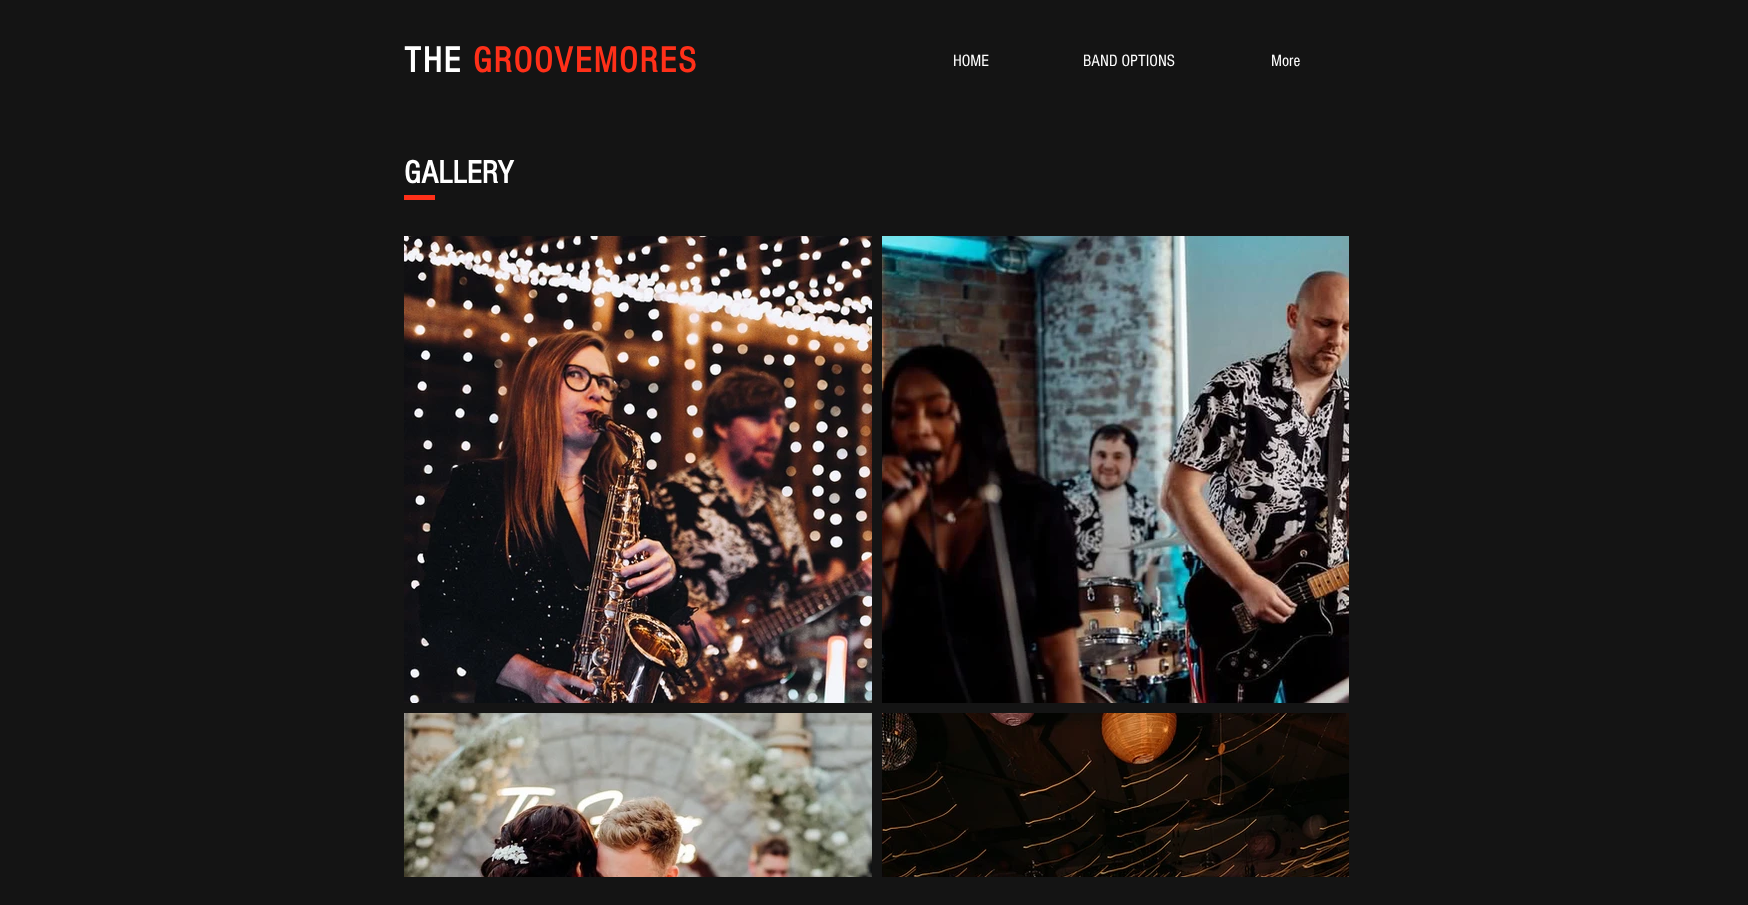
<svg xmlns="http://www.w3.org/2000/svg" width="1748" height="905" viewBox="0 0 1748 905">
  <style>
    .t1 { font: bold 37px 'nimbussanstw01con'; letter-spacing: 1.8px; fill: #fff; }
    .t2 { font: bold 37px 'nimbussanstw01con'; letter-spacing: 1.8px; fill: #ff3019; }
    .t3 { font: 17px 'nimbussanstw01con'; fill: #fff; }
    .t4 { font: bold 33px 'nimbussanstw01con'; fill: #fff; }
  </style>
  <rect width="100%" height="100%" fill="#141414"/>
  <text x="404" y="72" class="t1">THE</text>
  <text x="473" y="72" class="t2">GROOVEMORES</text>
  <text x="953" y="66" class="t3">HOME</text>
  <text x="1083" y="66" class="t3">BAND OPTIONS</text>
  <text x="1271" y="66" class="t3">More</text>
  <text x="404" y="183" class="t4">GALLERY</text>
  <rect x="404" y="195" width="31" height="5" fill="#ff3019"/>
  <image x="404" y="236" width="468" height="467" href="images/1.png"/>
  <image x="882" y="236" width="467" height="467" href="images/2.png"/>
  <image x="404" y="713" width="468" height="164" href="images/3.png"/>
  <image x="882" y="713" width="467" height="164" href="images/4.png"/>
</svg>
